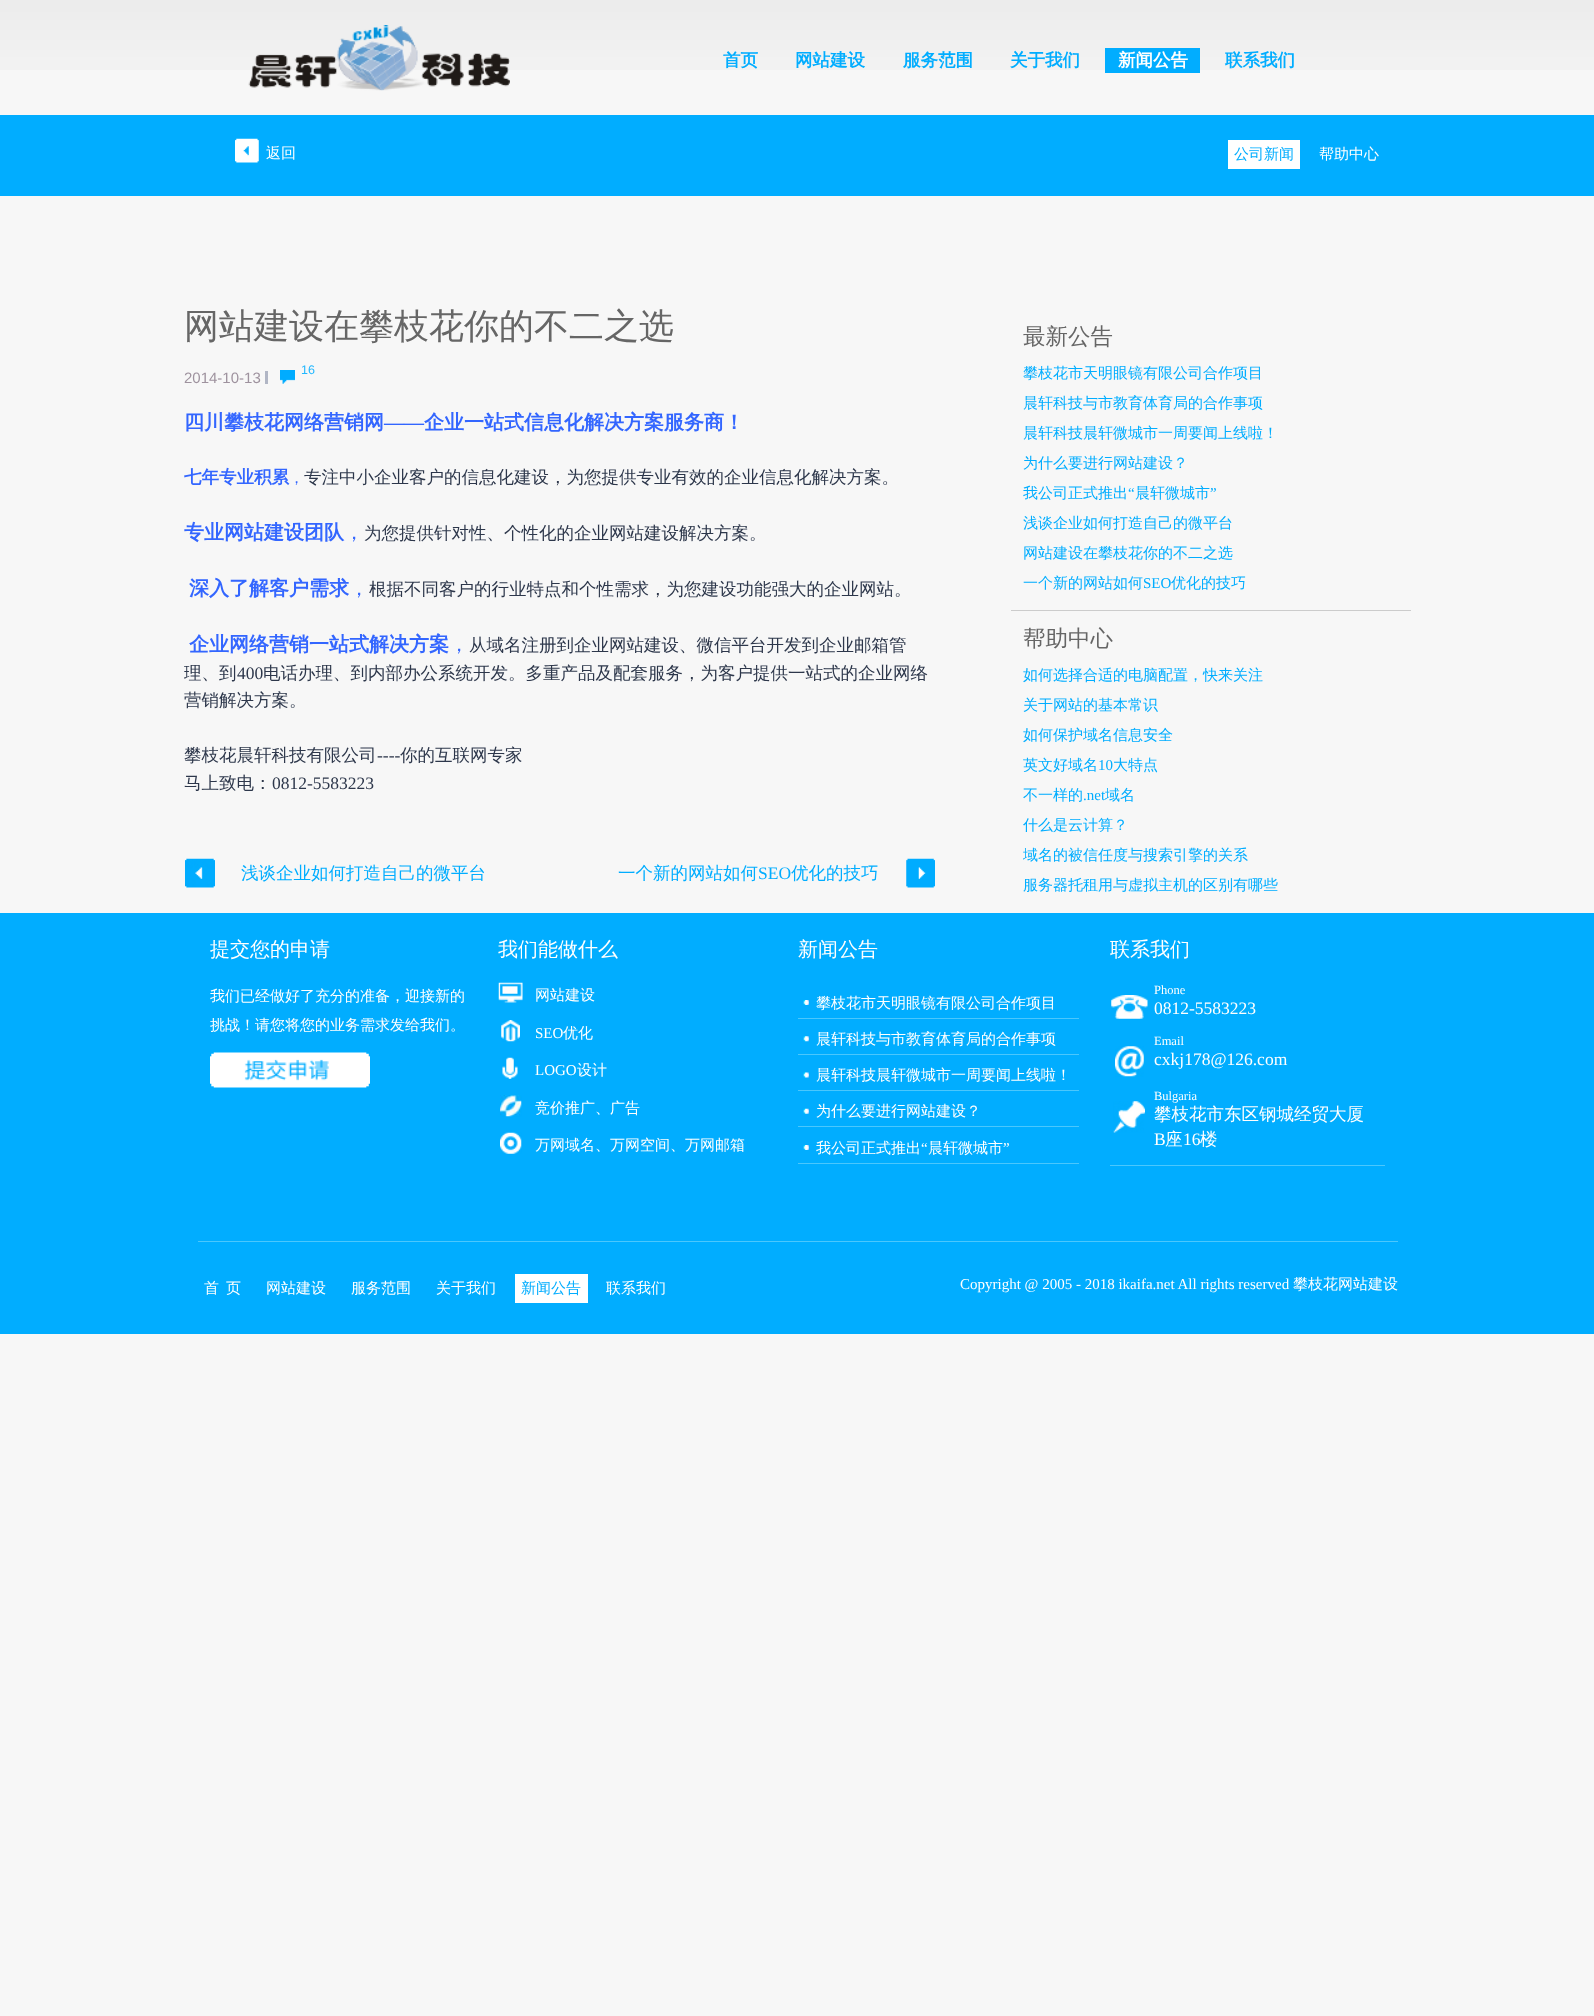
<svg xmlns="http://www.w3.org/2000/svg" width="1594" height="2016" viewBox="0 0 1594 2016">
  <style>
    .t1 { font: bold 17.5px WenQuanYi Zen Hei; fill: #01adff; }
    .t2 { font: bold 17.5px WenQuanYi Zen Hei; fill: #fff; }
    .t3 { font: 500 15px WenQuanYi Zen Hei; fill: #fff; }
    .t4 { font: 500 15px WenQuanYi Zen Hei; fill: #01adff; }
    .t5 { font: 500 35px WenQuanYi Zen Hei; fill: #666; }
    .t6 { font: 12.5px Liberation Sans; fill: #21b7ff; }
    .t7 { font: 15px Liberation Sans; fill: #9e929e; }
    .t8 { font: bold 20px WenQuanYi Zen Hei; fill: #36f; }
    .t9 { font: bold 20px Liberation Serif; fill: #36f; }
    .t10 { font: bold 17.5px WenQuanYi Zen Hei; fill: #36f; }
    .t11 { font: 500 15px WenQuanYi Zen Hei; fill: #36f; }
    .t12 { font: 500 17.5px WenQuanYi Zen Hei; fill: #2d374b; }
    .t13 { font: 500 20px WenQuanYi Zen Hei; fill: #36f; }
    .t14 { font: 17.5px Liberation Serif; fill: #2d374b; }
    .t15 { font: 500 17.5px WenQuanYi Zen Hei; fill: #01adff; }
    .t16 { font: 17.5px Liberation Serif; fill: #01adff; }
    .t17 { font: 500 22.5px WenQuanYi Zen Hei; fill: #666; }
    .t18 { font: 15px Liberation Serif; fill: #01adff; }
    .t19 { font: 500 20px WenQuanYi Zen Hei; fill: #fff; }
    .t20 { font: 15px Liberation Serif; fill: #fff; }
    .t21 { font: 12.5px Liberation Serif; fill: #fff; }
    .t22 { font: 17.5px Liberation Serif; fill: #fff; }
    .t23 { font: 500 17.5px WenQuanYi Zen Hei; fill: #fff; }
  </style>
  <rect width="100%" height="100%" fill="#f7f7f7"/>
  <image x="0" y="0" width="1594" height="70" href="images/1.png"/>
  <image x="248" y="25" width="262" height="66" href="images/2.png"/>
  <text x="723" y="66" class="t1">首页</text>
  <text x="795" y="66" class="t1">网站建设</text>
  <text x="903" y="66" class="t1">服务范围</text>
  <text x="1010" y="66" class="t1">关于我们</text>
  <rect x="1105" y="48" width="95" height="25" fill="#01adff"/>
  <text x="1118" y="66" class="t2">新闻公告</text>
  <text x="1225" y="66" class="t1">联系我们</text>
  <rect x="0" y="115" width="1594" height="81" fill="#01adff"/>
  <image x="235" y="138" width="24" height="25" href="images/3.png"/>
  <text x="266" y="158" class="t3">返回</text>
  <rect x="1228" y="140" width="72" height="29" fill="#fff"/>
  <text x="1234" y="159" class="t4">公司新闻</text>
  <text x="1319" y="159" class="t3">帮助中心</text>
  <text x="184" y="338" class="t5">网站建设在攀枝花你的不二之选</text>
  <image x="280" y="370" width="15" height="14" href="images/4.png"/>
  <text x="301" y="374" class="t6">16</text>
  <rect x="265" y="371" width="3" height="13" fill="#b1b6c5"/>
  <text x="184" y="383" class="t7">2014-10-13</text>
  <text x="184" y="429" class="t8">四川攀枝花网络营销网</text>
  <text x="384" y="429" class="t9">——</text>
  <text x="424" y="429" class="t8">企业一站式信息化解决方案服务商！</text>
  <text x="184" y="483" class="t10">七年专业积累</text>
  <text x="289" y="483" class="t11">，</text>
  <text x="304" y="483" class="t12">专注中小企业客户的信息化建设，为您提供专业有效的企业信息化解决方案。</text>
  <text x="184" y="539" class="t8">专业网站建设团队</text>
  <text x="344" y="539" class="t13">，</text>
  <text x="364" y="539" class="t12">为您提供针对性、个性化的企业网站建设解决方案。</text>
  <text x="189" y="595" class="t8">深入了解客户需求</text>
  <text x="349" y="595" class="t13">，</text>
  <text x="369" y="595" class="t12">根据不同客户的行业特点和个性需求，为您建设功能强大的企业网站。</text>
  <text x="189" y="651" class="t8">企业网络营销一站式解决方案</text>
  <text x="449" y="651" class="t13">，</text>
  <text x="469" y="651" class="t12">从域名注册到企业网站建设、微信平台开发到企业邮箱管</text>
  <text x="184" y="679" class="t12">理、到</text>
  <text x="237" y="679" class="t14">400</text>
  <text x="263" y="679" class="t12">电话办理、到内部办公系统开发。多重产品及配套服务，为客户提供一站式的企业网络</text>
  <text x="184" y="706" class="t12">营销解决方案。</text>
  <text x="184" y="761" class="t12">攀枝花晨轩科技有限公司</text>
  <text x="377" y="761" class="t14">----</text>
  <text x="400" y="761" class="t12">你的互联网专家</text>
  <text x="184" y="789" class="t12">马上致电：</text>
  <text x="272" y="789" class="t14">0812-5583223</text>
  <image x="185" y="858" width="30" height="30" href="images/5.png"/>
  <text x="241" y="879" class="t15">浅谈企业如何打造自己的微平台</text>
  <image x="906" y="858" width="29" height="30" href="images/6.png"/>
  <text x="618" y="879" class="t15">一个新的网站如何</text>
  <text x="758" y="879" class="t16">SEO</text>
  <text x="791" y="879" class="t15">优化的技巧</text>
  <rect x="1011" y="610" width="400" height="1" fill="#ccc"/>
  <text x="1023" y="344" class="t17">最新公告</text>
  <text x="1023" y="378" class="t4">攀枝花市天明眼镜有限公司合作项目</text>
  <text x="1023" y="408" class="t4">晨轩科技与市教育体育局的合作事项</text>
  <text x="1023" y="438" class="t4">晨轩科技晨轩微城市一周要闻上线啦！</text>
  <text x="1023" y="468" class="t4">为什么要进行网站建设？</text>
  <text x="1023" y="498" class="t4">我公司正式推出</text>
  <text x="1128" y="498" class="t18">“</text>
  <text x="1135" y="498" class="t4">晨轩微城市</text>
  <text x="1210" y="498" class="t18">”</text>
  <text x="1023" y="528" class="t4">浅谈企业如何打造自己的微平台</text>
  <text x="1023" y="558" class="t4">网站建设在攀枝花你的不二之选</text>
  <text x="1023" y="588" class="t4">一个新的网站如何</text>
  <text x="1143" y="588" class="t18">SEO</text>
  <text x="1171" y="588" class="t4">优化的技巧</text>
  <text x="1023" y="646" class="t17">帮助中心</text>
  <text x="1023" y="680" class="t4">如何选择合适的电脑配置，快来关注</text>
  <text x="1023" y="710" class="t4">关于网站的基本常识</text>
  <text x="1023" y="740" class="t4">如何保护域名信息安全</text>
  <text x="1023" y="770" class="t4">英文好域名</text>
  <text x="1098" y="770" class="t18">10</text>
  <text x="1113" y="770" class="t4">大特点</text>
  <text x="1023" y="800" class="t4">不一样的</text>
  <text x="1083" y="800" class="t18">.net</text>
  <text x="1105" y="800" class="t4">域名</text>
  <text x="1023" y="830" class="t4">什么是云计算？</text>
  <text x="1023" y="860" class="t4">域名的被信任度与搜索引擎的关系</text>
  <text x="1023" y="890" class="t4">服务器托租用与虚拟主机的区别有哪些</text>
  <rect x="0" y="913" width="1594" height="421" fill="#01adff"/>
  <text x="210" y="956" class="t19">提交您的申请</text>
  <text x="210" y="1001" class="t3">我们已经做好了充分的准备，迎接新的</text>
  <text x="210" y="1030" class="t3">挑战！请您将您的业务需求发给我们。</text>
  <image x="210" y="1052" width="160" height="36" href="images/7.png"/>
  <text x="498" y="956" class="t19">我们能做什么</text>
  <image x="498" y="982" width="25" height="21" href="images/8.png"/>
  <text x="535" y="1000" class="t3">网站建设</text>
  <image x="501" y="1020" width="19" height="22" href="images/9.png"/>
  <text x="535" y="1038" class="t20">SEO</text>
  <text x="563" y="1038" class="t3">优化</text>
  <image x="502" y="1057" width="16" height="22" href="images/10.png"/>
  <text x="535" y="1075" class="t20">LOGO</text>
  <text x="577" y="1075" class="t3">设计</text>
  <image x="500" y="1095" width="22" height="22" href="images/11.png"/>
  <text x="535" y="1113" class="t3">竞价推广、广告</text>
  <image x="500" y="1132" width="22" height="22" href="images/12.png"/>
  <text x="535" y="1150" class="t3">万网域名、万网空间、万网邮箱</text>
  <text x="798" y="956" class="t19">新闻公告</text>
  <image x="803" y="1000" width="6" height="5" href="images/13.png"/>
  <rect x="798" y="1018" width="281" height="1" fill="#4bc7fd"/>
  <text x="816" y="1008" class="t3">攀枝花市天明眼镜有限公司合作项目</text>
  <image x="803" y="1036" width="6" height="6" href="images/14.png"/>
  <rect x="798" y="1054" width="281" height="1" fill="#4bc7fd"/>
  <text x="816" y="1044" class="t3">晨轩科技与市教育体育局的合作事项</text>
  <image x="803" y="1072" width="6" height="6" href="images/15.png"/>
  <rect x="798" y="1090" width="281" height="1" fill="#4bc7fd"/>
  <text x="816" y="1080" class="t3">晨轩科技晨轩微城市一周要闻上线啦！</text>
  <image x="803" y="1108" width="6" height="6" href="images/16.png"/>
  <rect x="798" y="1126" width="281" height="1" fill="#4bc7fd"/>
  <text x="816" y="1116" class="t3">为什么要进行网站建设？</text>
  <image x="803" y="1145" width="6" height="5" href="images/13.png"/>
  <rect x="798" y="1163" width="281" height="1" fill="#4bc7fd"/>
  <text x="816" y="1153" class="t3">我公司正式推出</text>
  <text x="921" y="1153" class="t20">“</text>
  <text x="928" y="1153" class="t3">晨轩微城市</text>
  <text x="1003" y="1153" class="t20">”</text>
  <text x="1110" y="956" class="t19">联系我们</text>
  <image x="1111" y="995" width="37" height="24" href="images/17.png"/>
  <text x="1154" y="994" class="t21">Phone</text>
  <text x="1154" y="1014" class="t22">0812-5583223</text>
  <image x="1115" y="1046" width="29" height="31" href="images/18.png"/>
  <text x="1154" y="1045" class="t21">Email</text>
  <text x="1154" y="1065" class="t22">cxkj178@126.com</text>
  <image x="1113" y="1101" width="32" height="32" href="images/19.png"/>
  <text x="1154" y="1100" class="t21">Bulgaria</text>
  <text x="1154" y="1120" class="t23">攀枝花市东区钢城经贸大厦</text>
  <text x="1154" y="1145" class="t22">B</text>
  <text x="1165" y="1145" class="t23">座</text>
  <text x="1183" y="1145" class="t22">16</text>
  <text x="1200" y="1145" class="t23">楼</text>
  <rect x="1110" y="1165" width="275" height="1" fill="#4bc7fd"/>
  <rect x="198" y="1241" width="1200" height="1" fill="#4bc7fd"/>
  <text x="204" y="1293" class="t3">首</text>
  <text x="226" y="1293" class="t3">页</text>
  <text x="266" y="1293" class="t3">网站建设</text>
  <text x="351" y="1293" class="t3">服务范围</text>
  <text x="436" y="1293" class="t3">关于我们</text>
  <rect x="515" y="1274" width="73" height="29" fill="#fff"/>
  <text x="521" y="1293" class="t4">新闻公告</text>
  <text x="606" y="1293" class="t3">联系我们</text>
  <text x="960" y="1289" class="t20">Copyright @ 2005 - 2018 ikaifa.net All rights reserved</text>
  <text x="1293" y="1289" class="t3">攀枝花网站建设</text>
</svg>
